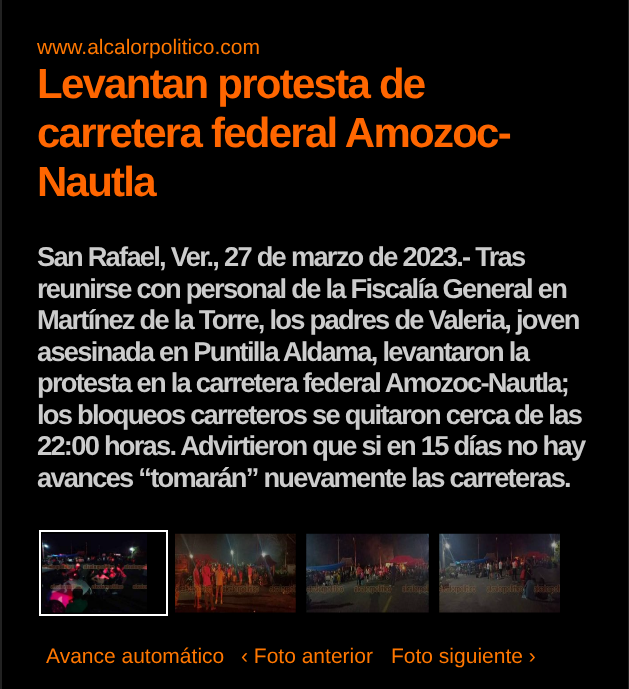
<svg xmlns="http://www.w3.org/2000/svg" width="629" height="689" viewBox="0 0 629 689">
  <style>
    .t1 { font: 21px Liberation Sans; fill: #f70; }
    .t2 { font: bold 42px Liberation Sans; letter-spacing: -1.75px; fill: #f60; }
    .t3 { font: bold 27.3px Liberation Sans; letter-spacing: -1.75px; fill: #ccc; }
  </style>
  <rect width="100%" height="100%" fill="#000"/>
  <rect x="628" y="0" width="1" height="689" fill="#222"/>
  <rect x="0" y="0" width="2" height="689" fill="#222"/>
  <text x="37" y="54" class="t1">www.alcalorpolitico.com</text>
  <text x="37" y="98" class="t2">Levantan protesta de</text>
  <text x="37" y="147" class="t2">carretera federal Amozoc-</text>
  <text x="37" y="196" class="t2">Nautla</text>
  <text x="37" y="266" class="t3">San Rafael, Ver., 27 de marzo de 2023.- Tras</text>
  <text x="37" y="298" class="t3">reunirse con personal de la Fiscalía General en</text>
  <text x="37" y="329" class="t3">Martínez de la Torre, los padres de Valeria, joven</text>
  <text x="37" y="361" class="t3">asesinada en Puntilla Aldama, levantaron la</text>
  <text x="37" y="392" class="t3">protesta en la carretera federal Amozoc-Nautla;</text>
  <text x="37" y="424" class="t3">los bloqueos carreteros se quitaron cerca de las</text>
  <text x="37" y="455" class="t3">22:00 horas. Advirtieron que si en 15 días no hay</text>
  <text x="37" y="487" class="t3">avances “tomarán” nuevamente las carreteras.</text>
  <rect x="40" y="531" width="127" height="84" fill="none" stroke="#fff" stroke-width="2"/>
  <image x="42" y="533" width="105" height="80" href="images/1.png"/>
  <image x="175" y="533" width="121" height="80" href="images/2.png"/>
  <image x="306" y="533" width="123" height="80" href="images/3.png"/>
  <image x="439" y="533" width="121" height="80" href="images/4.png"/>
  <text x="46" y="663" class="t1">Avance automático</text>
  <text x="241" y="663" class="t1">‹ Foto anterior</text>
  <text x="391" y="663" class="t1">Foto siguiente ›</text>
</svg>
